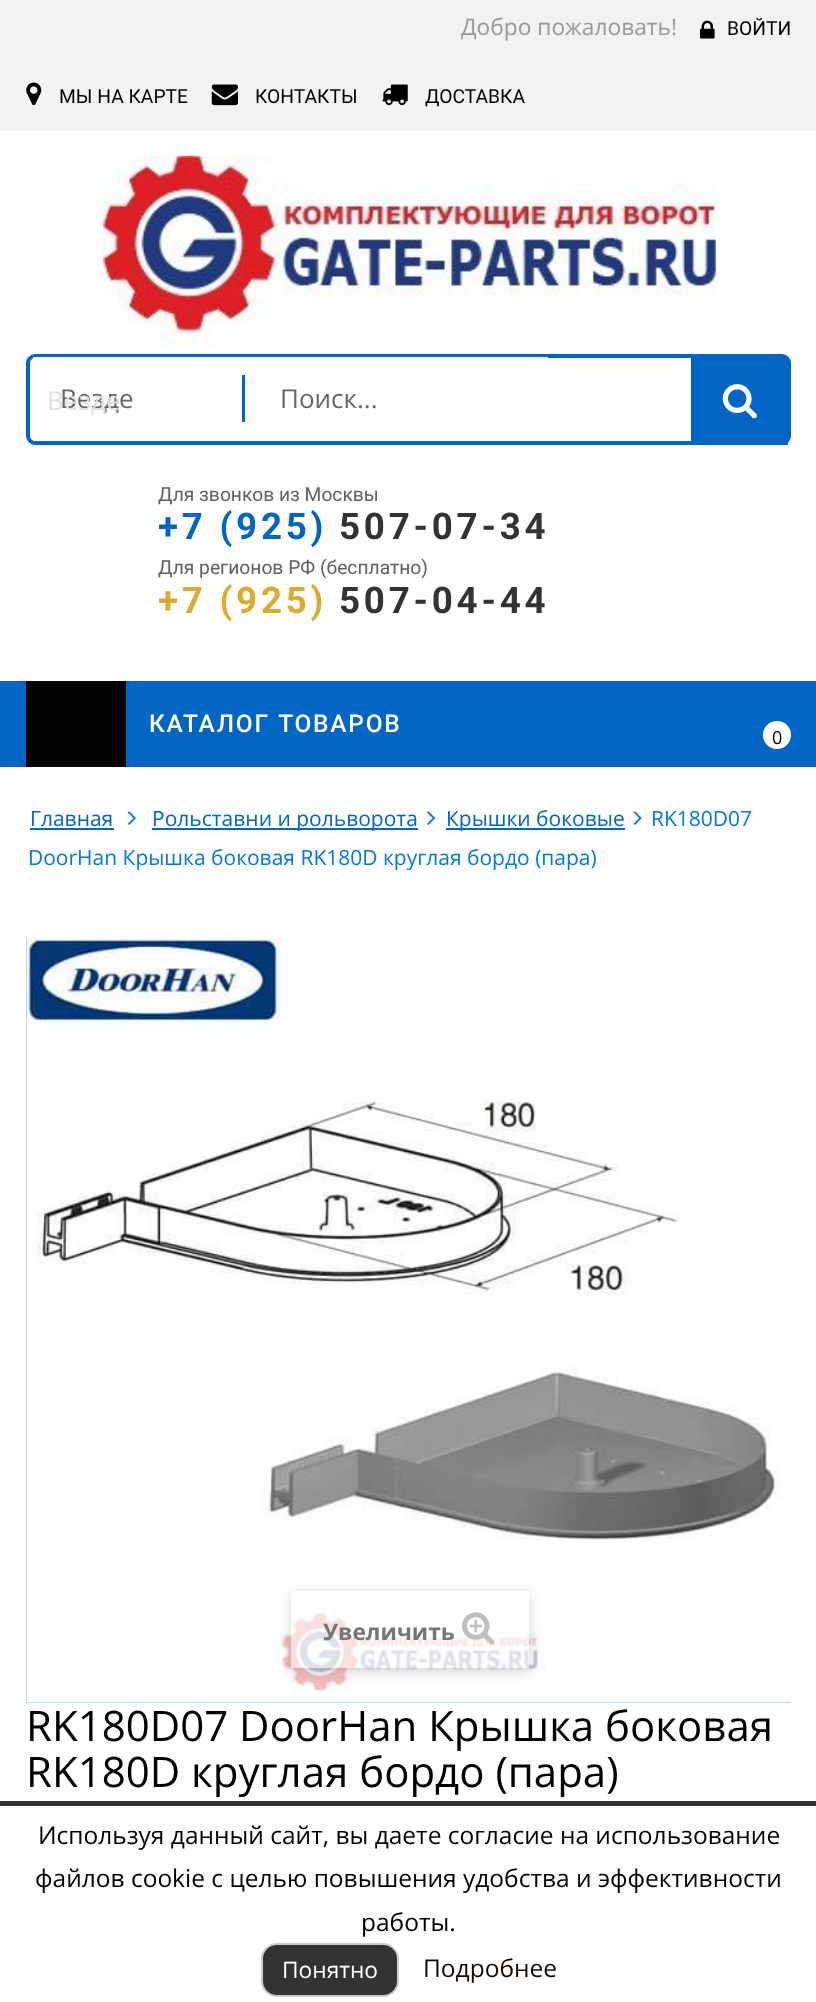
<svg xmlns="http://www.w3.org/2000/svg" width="816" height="2002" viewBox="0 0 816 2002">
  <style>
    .t1 { font: 22.75px Open Sans; fill: #999; }
    .t2 { font: 19.25px Roboto; fill: #000; }
    .t3 { font: 26px Open Sans; fill: #666; }
    .t4 { font: 26px Open Sans; fill: #dfdfdf; }
    .t5 { font: 19.25px Roboto; fill: #606060; }
    .t6 { font: bold 36.75px Roboto; letter-spacing: 3.75px; fill: #0166c3; }
    .t7 { font: bold 36.75px Roboto; letter-spacing: 3.75px; fill: #333; }
    .t8 { font: bold 36.75px Roboto; letter-spacing: 3.75px; fill: #ddac2c; }
    .t9 { font: 18px Open Sans; fill: #000; }
    .t10 { font: 500 24.5px Roboto; letter-spacing: 1.75px; fill: #fff; }
    .t11 { font: 21px Open Sans; fill: #0166c3; }
    .t12 { font: 21px Open Sans; fill: #0477ea; }
    .t13 { font: bold 22.75px Open Sans; fill: #777676; }
    .t14 { font: 42px Open Sans; fill: #000; }
    .t15 { font: 24.5px Open Sans; fill: #000; }
    .t16 { font: 22.75px Open Sans; fill: #fff; }
    .t17 { font: 24.5px Open Sans; fill: #140805; }
  </style>
  <defs>
    <clipPath id="clip1"><path d="M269 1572H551V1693H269ZM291 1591H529V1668H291Z" clip-rule="evenodd"/></clipPath>
  </defs>
  <rect width="100%" height="100%" fill="#fff"/>
  <rect x="0" y="0" width="816" height="131" fill="#f2f2f2"/>
  <text x="461" y="35" class="t1">Добро пожаловать!</text>
  <image x="700" y="20" width="15" height="19" href="images/1.png"/>
  <text x="727" y="35" class="t2">ВОЙТИ</text>
  <image x="26" y="82" width="16" height="24" href="images/2.png"/>
  <text x="59" y="103" class="t2">МЫ НА КАРТЕ</text>
  <image x="211" y="84" width="27" height="22" href="images/3.png"/>
  <text x="255" y="103" class="t2">КОНТАКТЫ</text>
  <image x="382" y="84" width="26" height="22" href="images/4.png"/>
  <text x="425" y="103" class="t2">ДОСТАВКА</text>
  <image x="103" y="155" width="613" height="193" href="images/5.png"/>
  <rect x="28" y="356" width="761" height="87" rx="7" fill="none" stroke="#0166c3" stroke-width="4"/>
  <rect x="33" y="357" width="212" height="84" fill="#fff"/>
  <rect x="242" y="375" width="3" height="47" fill="#0166c3"/>
  <text x="60" y="408" class="t3">Везде</text>
  <text x="47" y="410" class="t4">Везде</text>
  <rect x="245" y="357" width="303" height="1" fill="#fff"/>
  <text x="280" y="408" class="t3">Поиск...</text>
  <rect x="691" y="358" width="97" height="87" fill="#0166c3"/>
  <image x="722" y="384" width="35" height="35" href="images/6.png"/>
  <text x="158" y="501" class="t5">Для звонков из Москвы</text>
  <text x="158" y="539" class="t6">+7 (925)</text>
  <text x="339" y="539" class="t7">507-07-34</text>
  <text x="158" y="574" class="t5">Для регионов РФ (бесплатно)</text>
  <text x="158" y="613" class="t8">+7 (925)</text>
  <text x="339" y="613" class="t7">507-04-44</text>
  <rect x="0" y="681" width="816" height="86" fill="#0166c3"/>
  <circle cx="777" cy="735" r="14" fill="#fff"/>
  <text x="772" y="744" class="t9">0</text>
  <rect x="26" y="681" width="100" height="86" fill="#000"/>
  <text x="149" y="732" word-spacing="1" class="t10">КАТАЛОГ ТОВАРОВ</text>
  <rect x="152" y="828" width="266" height="2" fill="#0166c3"/>
  <text x="152" y="826" class="t11">Рольставни и рольворота</text>
  <image x="427" y="811" width="9" height="14" href="images/7.png"/>
  <rect x="446" y="828" width="179" height="2" fill="#0166c3"/>
  <text x="446" y="826" class="t11">Крышки боковые</text>
  <image x="633" y="811" width="9" height="14" href="images/8.png"/>
  <text x="651" y="826" class="t12">RK180D07</text>
  <text x="28" y="865" class="t12">DoorHan Крышка боковая RK180D круглая бордо (пара)</text>
  <text x="30" y="826" class="t11">Главная</text>
  <rect x="30" y="828" width="84" height="2" fill="#0166c3"/>
  <image x="128" y="811" width="8" height="14" href="images/9.png"/>
  <rect x="26" y="938" width="765" height="765" fill="#0166c3"/>
  <image x="26" y="938" width="765" height="765" href="images/10.png"/>
  <g clip-path="url(#clip1)">
    <rect x="291" y="1594" width="238" height="77" fill="#00000029" filter="blur(7px)"/>
  </g>
  <rect x="291" y="1594" width="238" height="74" fill="#ffffff80"/>
  <text x="323" y="1640" class="t13">Увеличить</text>
  <image x="462" y="1612" width="33" height="33" href="images/11.png"/>
  <text x="26" y="1741" class="t14">RK180D07 DoorHan Крышка боковая</text>
  <text x="26" y="1787" class="t14">RK180D круглая бордо (пара)</text>
  <rect x="0" y="1801" width="816" height="5" fill="#333"/>
  <text x="38" y="1844" class="t15">Используя данный сайт, вы даете согласие на использование</text>
  <text x="35" y="1887" class="t15">файлов cookie с целью повышения удобства и эффективности</text>
  <text x="361" y="1931" class="t15">работы.</text>
  <rect x="262" y="1944" width="136" height="52" rx="15" fill="#333" stroke="#ccc" stroke-width="2"/>
  <text x="282" y="1978" class="t16">Понятно</text>
  <text x="423" y="1977" class="t17">Подробнее</text>
</svg>
